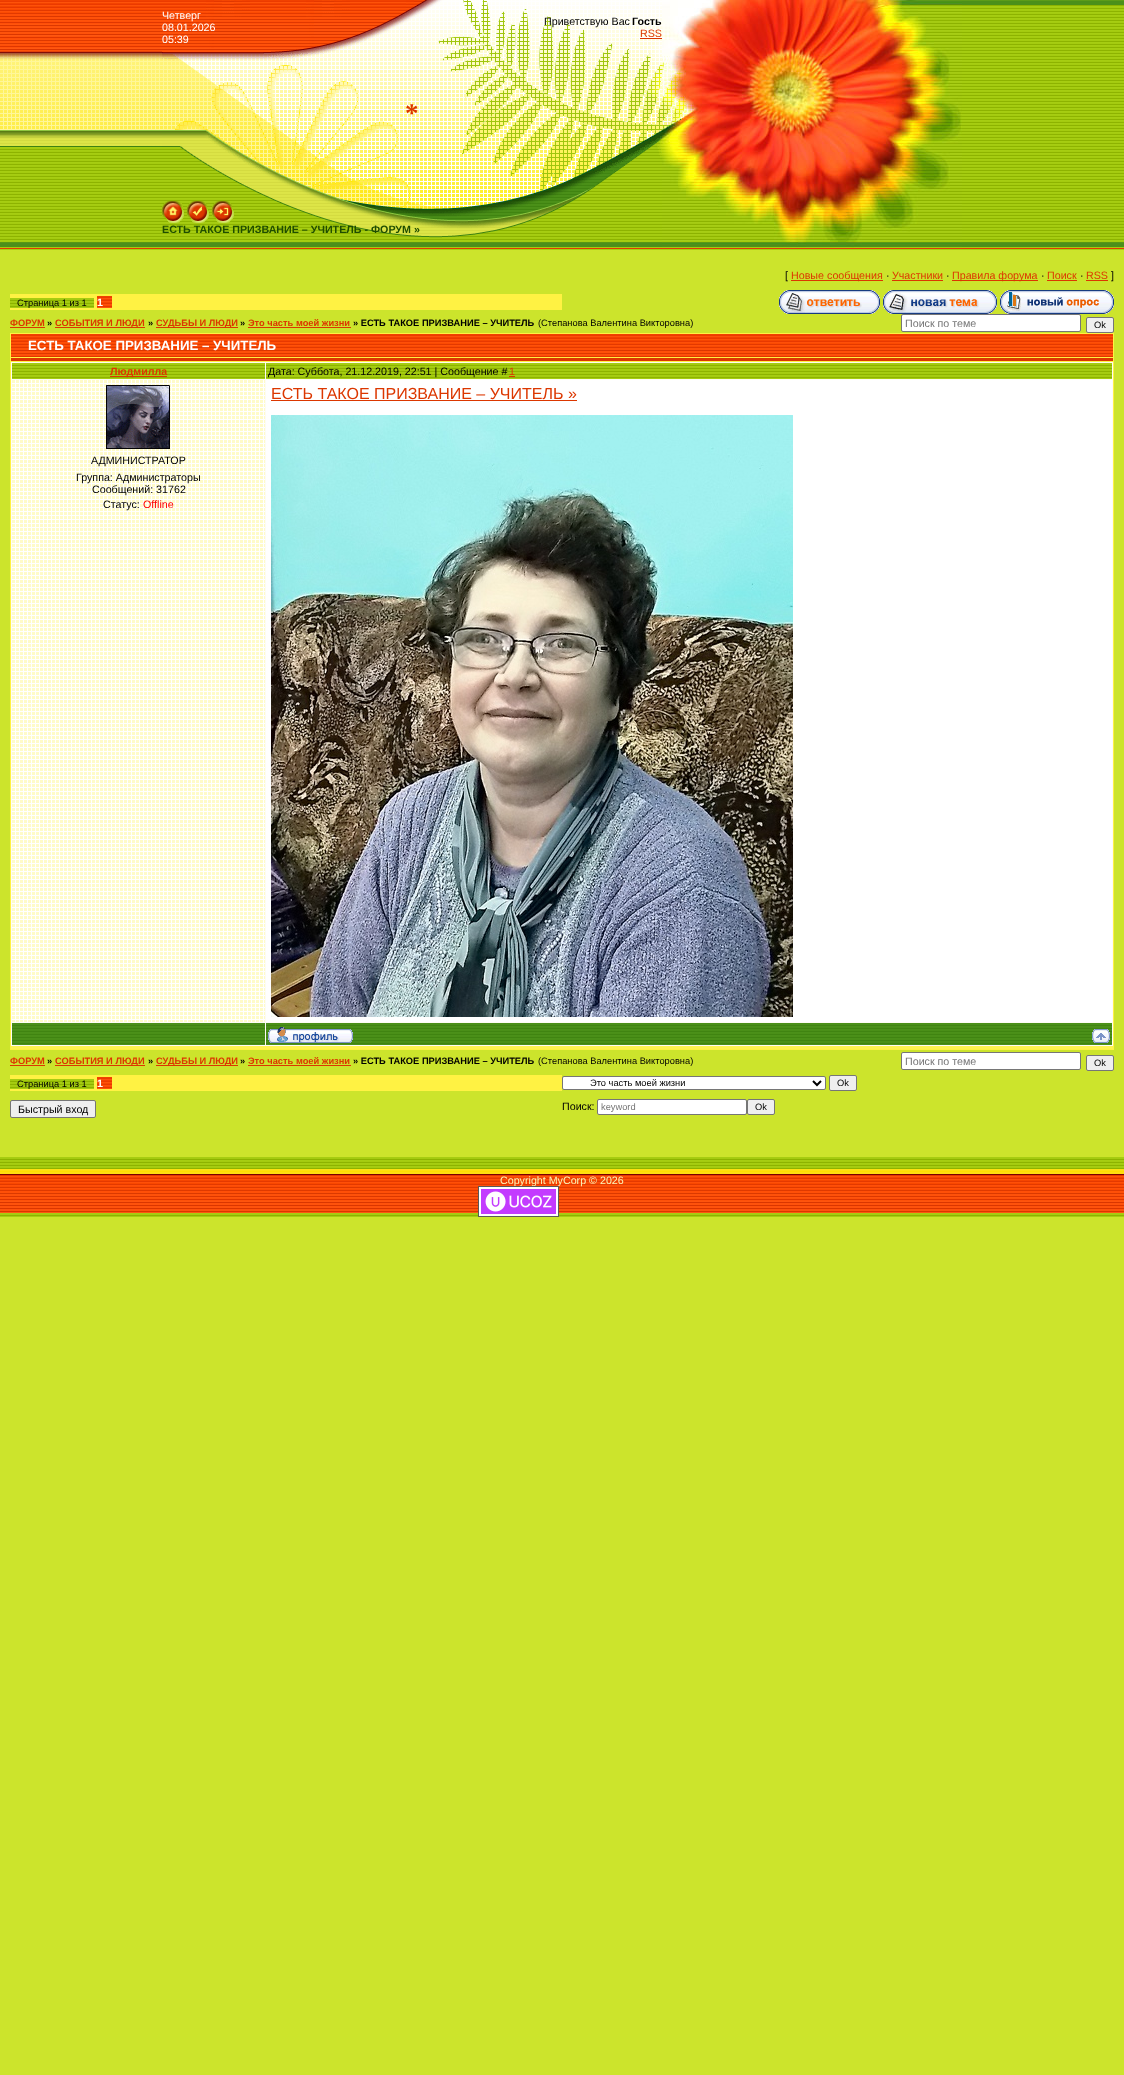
<svg xmlns="http://www.w3.org/2000/svg" width="1124" height="2075" viewBox="0 0 1124 2075">
  <style>
    .t1 { font: 10.7px Liberation Sans; fill: #fff; }
    .t2 { font: 10.7px Liberation Sans; fill: #000; }
    .t3 { font: bold 10.7px Liberation Sans; fill: #000; }
    .t4 { font: 10.7px Liberation Sans; fill: #dc3700; }
    .t5 { font: bold 27px Liberation Serif; fill: #dc3700; }
    .t6 { font: bold 10.7px Liberation Sans; fill: #1f4d00; }
    .t7 { font: 9.3px Liberation Sans; fill: #000; }
    .t8 { font: bold 10.7px Liberation Sans; fill: #fff; }
    .t9 { font: bold 9.3px Liberation Sans; fill: #dc3700; }
    .t10 { font: bold 9.3px Liberation Sans; fill: #000; }
    .t11 { font: 10.7px Liberation Sans; fill: #757575; }
    .t12 { font: bold 13.3px Liberation Sans; fill: #fff; }
    .t13 { font: bold 10.7px Liberation Sans; fill: #dc3700; }
    .t14 { font: 16px Liberation Sans; fill: #dc3700; }
    .t15 { font: 10.7px Liberation Sans; fill: #f00; }
    .t16 { font: 9.3px Liberation Sans; fill: #757575; }
    .t17 { font: 10.7px Liberation Sans; fill: #f9f7ba; }
  </style>
  <rect width="100%" height="100%" fill="#cce42c"/>
  <image x="0" y="0" width="162" height="250" href="images/1.png"/>
  <image x="162" y="0" width="500" height="53" href="images/2.png"/>
  <text x="162" y="19" class="t1">Четверг</text>
  <text x="162" y="31" class="t1">08.01.2026</text>
  <text x="162" y="43" class="t1">05:39</text>
  <text x="544" y="25" class="t2">Приветствую Вас</text>
  <text x="632" y="25" class="t3">Гость</text>
  <text x="640" y="37" class="t4">RSS</text>
  <rect x="640" y="38" width="22" height="1" fill="#dc3700"/>
  <image x="662" y="0" width="300" height="250" href="images/3.png"/>
  <image x="962" y="0" width="162" height="250" href="images/4.png"/>
  <image x="162" y="53" width="500" height="120" href="images/5.png"/>
  <text x="405" y="122" class="t5">*</text>
  <image x="162" y="173" width="500" height="77" href="images/6.png"/>
  <image x="162" y="201" width="22" height="22" href="images/7.png"/>
  <image x="187" y="201" width="22" height="22" href="images/8.png"/>
  <image x="212" y="201" width="22" height="22" href="images/9.png"/>
  <text x="162" y="233" class="t6">ЕСТЬ ТАКОЕ ПРИЗВАНИЕ – УЧИТЕЛЬ - ФОРУМ »</text>
  <text x="785" y="279" class="t2">[</text>
  <rect x="791" y="280" width="92" height="1" fill="#dc3700"/>
  <text x="791" y="279" class="t4">Новые сообщения</text>
  <text x="886" y="279" class="t2">·</text>
  <text x="892" y="279" class="t4">Участники</text>
  <rect x="892" y="280" width="51" height="1" fill="#dc3700"/>
  <text x="946" y="279" class="t2">·</text>
  <rect x="952" y="280" width="86" height="1" fill="#dc3700"/>
  <text x="952" y="279" class="t4">Правила форума</text>
  <text x="1041" y="279" class="t2">·</text>
  <text x="1047" y="279" class="t4">Поиск</text>
  <rect x="1047" y="280" width="30" height="1" fill="#dc3700"/>
  <text x="1080" y="279" class="t2">·</text>
  <text x="1086" y="279" class="t4">RSS</text>
  <rect x="1086" y="280" width="22" height="1" fill="#dc3700"/>
  <text x="1111" y="279" class="t2">]</text>
  <rect x="10" y="294" width="552" height="16" fill="#fff243"/>
  <image x="10" y="298" width="84" height="10" href="images/10.png"/>
  <text x="17" y="306" class="t7">Страница 1 из 1</text>
  <image x="97" y="296" width="15" height="12" href="images/11.png"/>
  <text x="97" y="306" class="t8">1</text>
  <image x="779" y="290" width="101" height="24" href="images/12.png"/>
  <image x="883" y="290" width="114" height="24" href="images/13.png"/>
  <image x="1000" y="290" width="114" height="24" href="images/14.png"/>
  <text x="10" y="326" class="t9">ФОРУМ</text>
  <rect x="10" y="327" width="35" height="1" fill="#dc3700"/>
  <text x="47" y="326" class="t10">»</text>
  <rect x="55" y="327" width="90" height="1" fill="#dc3700"/>
  <text x="55" y="326" class="t9">СОБЫТИЯ И ЛЮДИ</text>
  <text x="148" y="326" class="t10">»</text>
  <rect x="156" y="327" width="82" height="1" fill="#dc3700"/>
  <text x="156" y="326" class="t9">СУДЬБЫ И ЛЮДИ</text>
  <text x="240" y="326" class="t10">»</text>
  <text x="248" y="326" class="t9">Это часть моей жизни</text>
  <rect x="248" y="327" width="103" height="1" fill="#dc3700"/>
  <text x="353" y="326" class="t10">» ЕСТЬ ТАКОЕ ПРИЗВАНИЕ – УЧИТЕЛЬ</text>
  <text x="538" y="326" class="t7">(Степанова Валентина Викторовна)</text>
  <rect x="901.5" y="314.5" width="179" height="17" rx="1.5" fill="#fff" stroke="#767676"/>
  <text x="905" y="327" class="t11">Поиск по теме</text>
  <rect x="1086.5" y="317.5" width="27" height="15" rx="1.5" fill="#efefef" stroke="#767676"/>
  <text x="1094" y="328" class="t7">Ok</text>
  <rect x="10" y="333" width="1104" height="717" fill="#fff243"/>
  <image x="11" y="334" width="1102" height="23" href="images/15.png"/>
  <text x="28" y="350" class="t12">ЕСТЬ ТАКОЕ ПРИЗВАНИЕ – УЧИТЕЛЬ</text>
  <rect x="11" y="358" width="1102" height="3" fill="#dc3700"/>
  <rect x="11" y="362" width="1102" height="684" fill="#fdfcf4"/>
  <rect x="11" y="1046" width="1102" height="3" fill="#fff350"/>
  <image x="12" y="363" width="253" height="16" href="images/16.png"/>
  <rect x="110" y="376" width="57" height="1" fill="#dc3700"/>
  <text x="110" y="375" class="t13">Людмилла</text>
  <image x="266" y="363" width="846" height="16" href="images/17.png"/>
  <text x="268" y="375" class="t2">Дата: Суббота, 21.12.2019, 22:51 | Сообщение #</text>
  <text x="509" y="375" class="t4">1</text>
  <rect x="509" y="376" width="6" height="1" fill="#dc3700"/>
  <rect x="266" y="380" width="846" height="642" fill="#fff"/>
  <text x="271" y="399" class="t14">ЕСТЬ ТАКОЕ ПРИЗВАНИЕ – УЧИТЕЛЬ »</text>
  <rect x="271" y="400" width="306" height="1" fill="#dc3700"/>
  <image x="271" y="415" width="522" height="602" href="images/18.png"/>
  <image x="12" y="380" width="253" height="642" href="images/19.png"/>
  <image x="106" y="385" width="64" height="64" href="images/20.png"/>
  <text x="91" y="464" class="t2">АДМИНИСТРАТОР</text>
  <text x="76" y="481" class="t2">Группа: Администраторы</text>
  <text x="92" y="493" class="t2">Сообщений: 31762</text>
  <text x="103" y="508" class="t2">Статус:</text>
  <text x="143" y="508" class="t15">Offline</text>
  <rect x="12" y="1023" width="253" height="22" fill="#4b9019"/>
  <image x="12" y="1025" width="253" height="19" href="images/21.png"/>
  <rect x="266" y="1023" width="846" height="22" fill="#4b9019"/>
  <image x="266" y="1025" width="846" height="19" href="images/22.png"/>
  <image x="268" y="1027" width="85" height="16" href="images/23.png"/>
  <image x="1092" y="1029" width="18" height="14" href="images/24.png"/>
  <text x="10" y="1064" class="t9">ФОРУМ</text>
  <rect x="10" y="1065" width="35" height="1" fill="#dc3700"/>
  <text x="47" y="1064" class="t10">»</text>
  <rect x="55" y="1065" width="90" height="1" fill="#dc3700"/>
  <text x="55" y="1064" class="t9">СОБЫТИЯ И ЛЮДИ</text>
  <text x="148" y="1064" class="t10">»</text>
  <rect x="156" y="1065" width="82" height="1" fill="#dc3700"/>
  <text x="156" y="1064" class="t9">СУДЬБЫ И ЛЮДИ</text>
  <text x="240" y="1064" class="t10">»</text>
  <text x="248" y="1064" class="t9">Это часть моей жизни</text>
  <rect x="248" y="1065" width="103" height="1" fill="#dc3700"/>
  <text x="353" y="1064" class="t10">» ЕСТЬ ТАКОЕ ПРИЗВАНИЕ – УЧИТЕЛЬ</text>
  <text x="538" y="1064" class="t7">(Степанова Валентина Викторовна)</text>
  <rect x="901.5" y="1052.5" width="179" height="17" rx="1.5" fill="#fff" stroke="#767676"/>
  <text x="905" y="1065" class="t11">Поиск по теме</text>
  <rect x="1086.5" y="1055.5" width="27" height="15" rx="1.5" fill="#efefef" stroke="#767676"/>
  <text x="1094" y="1066" class="t7">Ok</text>
  <rect x="10" y="1075" width="552" height="16" fill="#fff243"/>
  <image x="10" y="1079" width="84" height="10" href="images/10.png"/>
  <text x="17" y="1087" class="t7">Страница 1 из 1</text>
  <image x="97" y="1077" width="15" height="12" href="images/11.png"/>
  <text x="97" y="1087" class="t8">1</text>
  <rect x="562.5" y="1076.5" width="263" height="13" rx="1.5" fill="#fff" stroke="#767676"/>
  <path d="M813 1081L817 1085L821 1081" fill="none" stroke="#000" stroke-width="2"/>
  <text x="590" y="1086" class="t7">Это часть моей жизни</text>
  <rect x="829.5" y="1075.5" width="27" height="15" rx="1.5" fill="#efefef" stroke="#767676"/>
  <text x="837" y="1086" class="t7">Ok</text>
  <rect x="10.5" y="1100.5" width="85" height="17" rx="1.5" fill="#efefef" stroke="#767676"/>
  <text x="18" y="1113" class="t2">Быстрый вход</text>
  <text x="562" y="1110" class="t2">Поиск:</text>
  <rect x="597.5" y="1099.5" width="149" height="15" rx="1.5" fill="#fff" stroke="#767676"/>
  <text x="601" y="1110" class="t16">keyword</text>
  <rect x="747.5" y="1099.5" width="27" height="15" rx="1.5" fill="#efefef" stroke="#767676"/>
  <text x="755" y="1110" class="t7">Ok</text>
  <image x="0" y="1157" width="1124" height="60" href="images/25.png"/>
  <text x="500" y="1184" class="t17">Copyright MyCorp © 2026</text>
  <image x="478" y="1186" width="81" height="31" href="images/26.png"/>
</svg>
